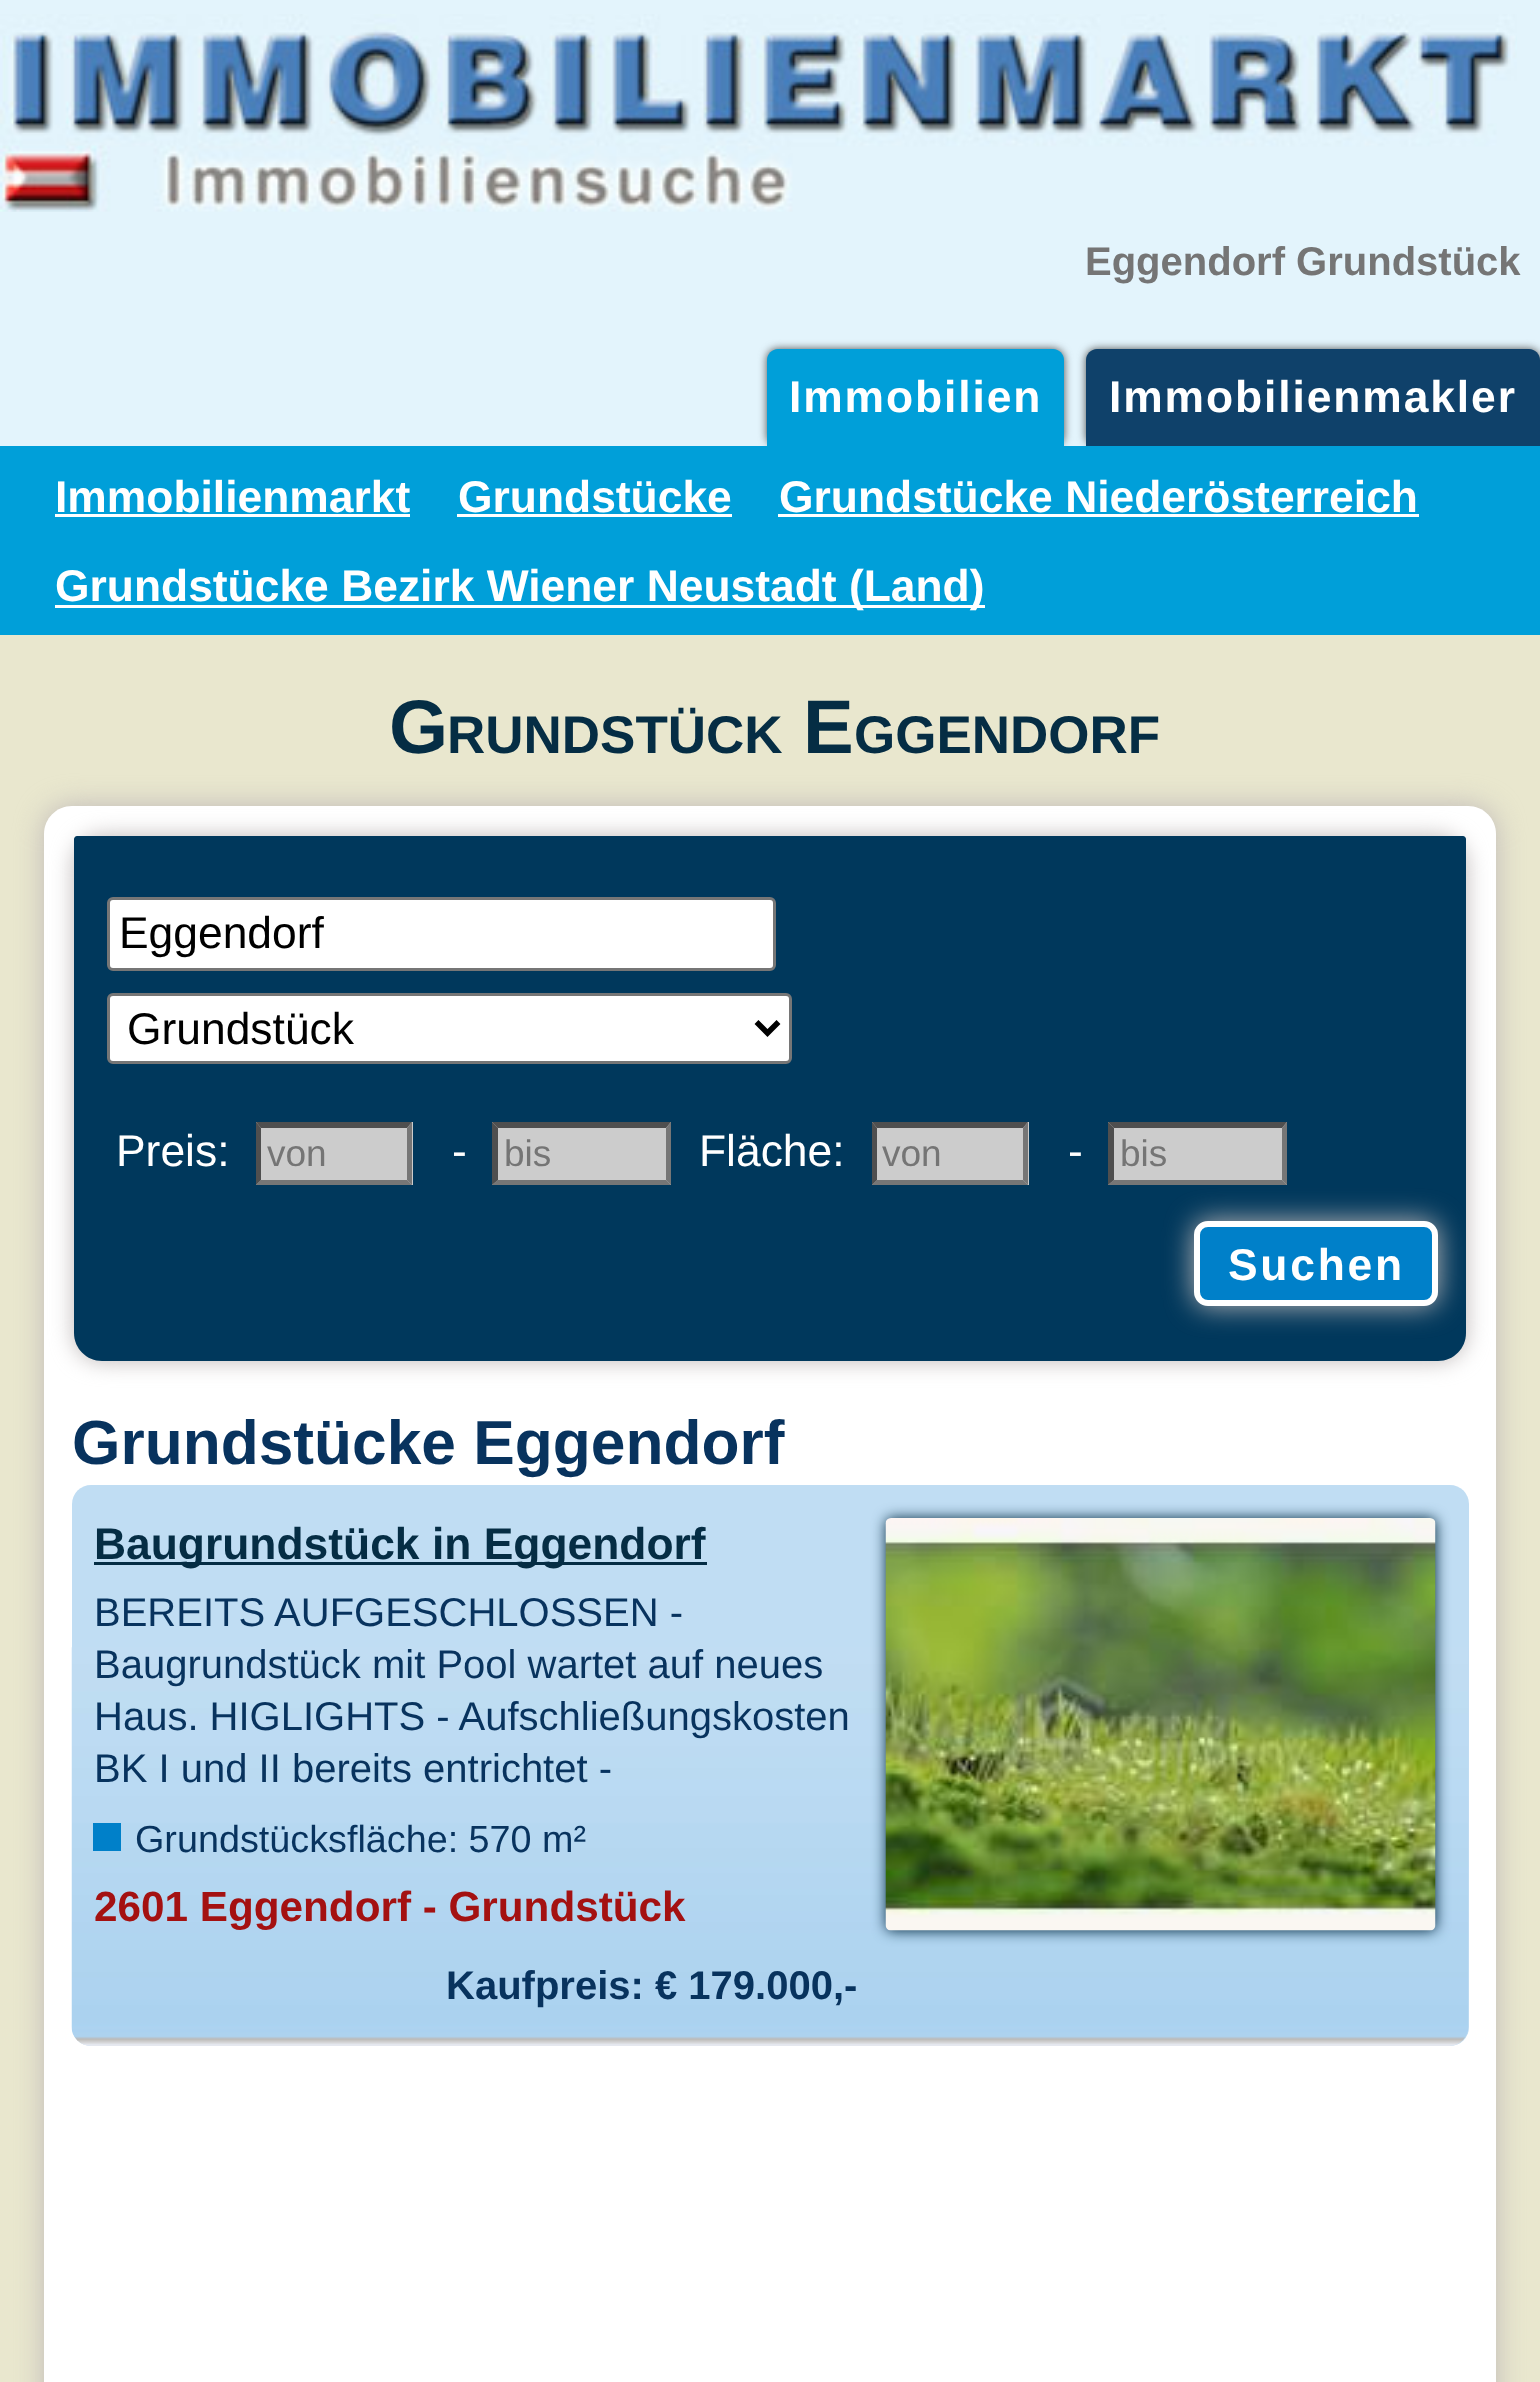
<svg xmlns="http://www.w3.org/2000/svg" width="1540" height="2382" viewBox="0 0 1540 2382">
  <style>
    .t1 { font: bold 40px Liberation Sans; fill: #757575; }
    .t2 { font: bold 44.4px Liberation Sans; letter-spacing: 1.9px; fill: #fff; }
    .t3 { font: bold 44.4px Liberation Sans; fill: #fff; }
    .t4 { font: bold 76px Liberation Sans; fill: #052d44; }
    .t5 { font: bold 53px Liberation Sans; fill: #052d44; }
    .t6 { font: 44.4px Liberation Sans; fill: #000; }
    .t7 { font: 44.4px Liberation Sans; fill: #fff; }
    .t8 { font: 37px Liberation Sans; fill: #757575; }
    .t9 { font: bold 44.4px Liberation Sans; letter-spacing: 2.75px; fill: #fff; }
    .t10 { font: bold 62.25px Liberation Sans; fill: #08335e; }
    .t11 { font: bold 44.4px Liberation Sans; fill: #052d44; }
    .t12 { font: 40px Liberation Sans; fill: #08335e; }
    .t13 { font: 37.75px Liberation Sans; fill: #08335e; }
    .t14 { font: bold 42.25px Liberation Sans; fill: #a41111; }
    .t15 { font: bold 40px Liberation Sans; fill: #08335e; }
  </style>
  <defs>
    <clipPath id="clip1"><rect x="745" y="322" width="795" height="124"/></clipPath>
  </defs>
  <rect width="100%" height="100%" fill="#e3f4fc"/>
  <image x="0" y="14" width="1517" height="198" href="images/1.png"/>
  <text x="1085" y="275" class="t1">Eggendorf Grundstück</text>
  <rect x="0" y="446" width="1540" height="189" fill="#009fd9"/>
  <g clip-path="url(#clip1)">
    <rect x="767" y="349" width="297" height="97" rx="11" fill="#4e4e4d" filter="blur(4px)"/>
  </g>
  <path d="M778 349H1053C1059 349 1064 354 1064 360V446H767V360C767 354 772 349 778 349Z" fill="#009fd9"/>
  <text x="789" y="412" class="t2">Immobilien</text>
  <g clip-path="url(#clip1)">
    <rect x="1086" y="349" width="454" height="97" rx="11" fill="#4e4e4d" filter="blur(4px)"/>
  </g>
  <path d="M1097 349H1529C1535 349 1540 354 1540 360V446H1086V360C1086 354 1091 349 1097 349Z" fill="#0f416a"/>
  <text x="1109" y="412" class="t2">Immobilienmakler</text>
  <text x="55" y="512" class="t3">Immobilienmarkt</text>
  <rect x="55" y="514" width="355" height="3" fill="#fff"/>
  <text x="458" y="512" class="t3">Grundstücke</text>
  <rect x="457" y="514" width="275" height="3" fill="#fff"/>
  <text x="779" y="512" class="t3">Grundstücke Niederösterreich</text>
  <rect x="778" y="514" width="641" height="3" fill="#fff"/>
  <rect x="55" y="605" width="930" height="3" fill="#fff"/>
  <text x="55" y="601" class="t3">Grundstücke Bezirk Wiener Neustadt (Land)</text>
  <rect x="0" y="635" width="1540" height="1747" fill="#e9e7ce"/>
  <text x="389" y="753" class="t4">G</text>
  <text x="447" y="753" class="t5">RUNDSTÜCK</text>
  <text x="803" y="753" class="t4">E</text>
  <text x="854" y="753" class="t5">GGENDORF</text>
  <rect x="44" y="806" width="1452" height="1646" rx="28" fill="#beb8b8" filter="blur(14px)"/>
  <path d="M72 806H1468C1483.5 806 1496 818.5 1496 834V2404C1496 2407.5 1493.5 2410 1490 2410H50C46.5 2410 44 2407.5 44 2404V834C44 818.5 56.5 806 72 806Z" fill="#fff"/>
  <rect x="74" y="836" width="1392" height="525" rx="28" fill="#beb8b8" filter="blur(11px)"/>
  <path d="M77 836H1463C1464.5 836 1466 837.5 1466 839V1333C1466 1348.5 1453.5 1361 1438 1361H102C86.5 1361 74 1348.5 74 1333V839C74 837.5 75.5 836 77 836Z" fill="#00385c"/>
  <rect x="108.5" y="898.5" width="666" height="71" rx="4.5" fill="#fff" stroke="#767676" stroke-width="3"/>
  <text x="119" y="948" class="t6">Eggendorf</text>
  <rect x="108.5" y="994.5" width="682" height="68" rx="4.5" fill="#fff" stroke="#767676" stroke-width="3"/>
  <path d="M756.5 1022L767.5 1033L778.5 1022" fill="none" stroke="#000" stroke-width="5.5"/>
  <text x="127" y="1044" class="t6">Grundstück</text>
  <text x="116" y="1166" class="t7">Preis:</text>
  <rect x="256" y="1122" width="157" height="63" fill="#ccc"/>
  <path d="M256 1122H412L407 1128H261Z" fill="#4f4f4f"/>
  <path d="M412 1122V1185L407 1180V1128Z" fill="#767676"/>
  <path d="M412 1185H256L261 1180H407Z" fill="#767676"/>
  <path d="M256 1185V1122L261 1128V1180Z" fill="#4f4f4f"/>
  <text x="267" y="1166" class="t8">von</text>
  <text x="452" y="1166" class="t7">-</text>
  <rect x="492" y="1122" width="179" height="63" fill="#ccc"/>
  <path d="M492 1122H671L666 1128H498Z" fill="#4f4f4f"/>
  <path d="M671 1122V1185L666 1180V1128Z" fill="#767676"/>
  <path d="M671 1185H492L498 1180H666Z" fill="#767676"/>
  <path d="M492 1185V1122L498 1128V1180Z" fill="#4f4f4f"/>
  <text x="504" y="1166" class="t8">bis</text>
  <text x="699" y="1166" class="t7">Fläche:</text>
  <rect x="872" y="1122" width="157" height="63" fill="#ccc"/>
  <path d="M872 1122H1028L1023 1128H877Z" fill="#4f4f4f"/>
  <path d="M1028 1122V1185L1023 1180V1128Z" fill="#767676"/>
  <path d="M1028 1185H872L877 1180H1023Z" fill="#767676"/>
  <path d="M872 1185V1122L877 1128V1180Z" fill="#4f4f4f"/>
  <text x="882" y="1166" class="t8">von</text>
  <text x="1068" y="1166" class="t7">-</text>
  <rect x="1108" y="1122" width="179" height="63" fill="#ccc"/>
  <path d="M1108 1122H1287L1282 1128H1114Z" fill="#4f4f4f"/>
  <path d="M1287 1122V1185L1282 1180V1128Z" fill="#767676"/>
  <path d="M1287 1185H1108L1114 1180H1282Z" fill="#767676"/>
  <path d="M1108 1185V1122L1114 1128V1180Z" fill="#4f4f4f"/>
  <text x="1120" y="1166" class="t8">bis</text>
  <rect x="1194" y="1221" width="244" height="85" rx="14" fill="#beb8b8" filter="blur(14px)"/>
  <rect x="1197" y="1224" width="238" height="79" rx="11" fill="#0080c9" stroke="#fff" stroke-width="6"/>
  <text x="1228" y="1280" class="t9">Suchen</text>
  <text x="72" y="1464" class="t10">Grundstücke Eggendorf</text>
  <rect x="72" y="1485" width="1397" height="561" rx="19" fill="#c0ddf3"/>
  <image x="71" y="1647" width="1398" height="399" href="images/2.png"/>
  <rect x="94" y="1562" width="613" height="3" fill="#052d44"/>
  <text x="94" y="1559" class="t11">Baugrundstück in Eggendorf</text>
  <text x="94" y="1626" class="t12">BEREITS AUFGESCHLOSSEN -</text>
  <text x="94" y="1678" class="t12">Baugrundstück mit Pool wartet auf neues</text>
  <text x="94" y="1730" class="t12">Haus. HIGLIGHTS - Aufschließungskosten</text>
  <text x="94" y="1782" class="t12">BK I und II bereits entrichtet -</text>
  <text x="135" y="1852" class="t13">Grundstücksfläche: 570 m²</text>
  <rect x="93" y="1823" width="28" height="28" fill="#0080c9"/>
  <text x="94" y="1921" class="t14">2601 Eggendorf - Grundstück</text>
  <text x="446" y="1999" class="t15">Kaufpreis: € 179.000,-</text>
  <rect x="886" y="1518" width="550" height="413" rx="6" fill="#052d44" filter="blur(7px)"/>
  <image x="885" y="1518" width="551" height="413" href="images/3.png"/>
</svg>
